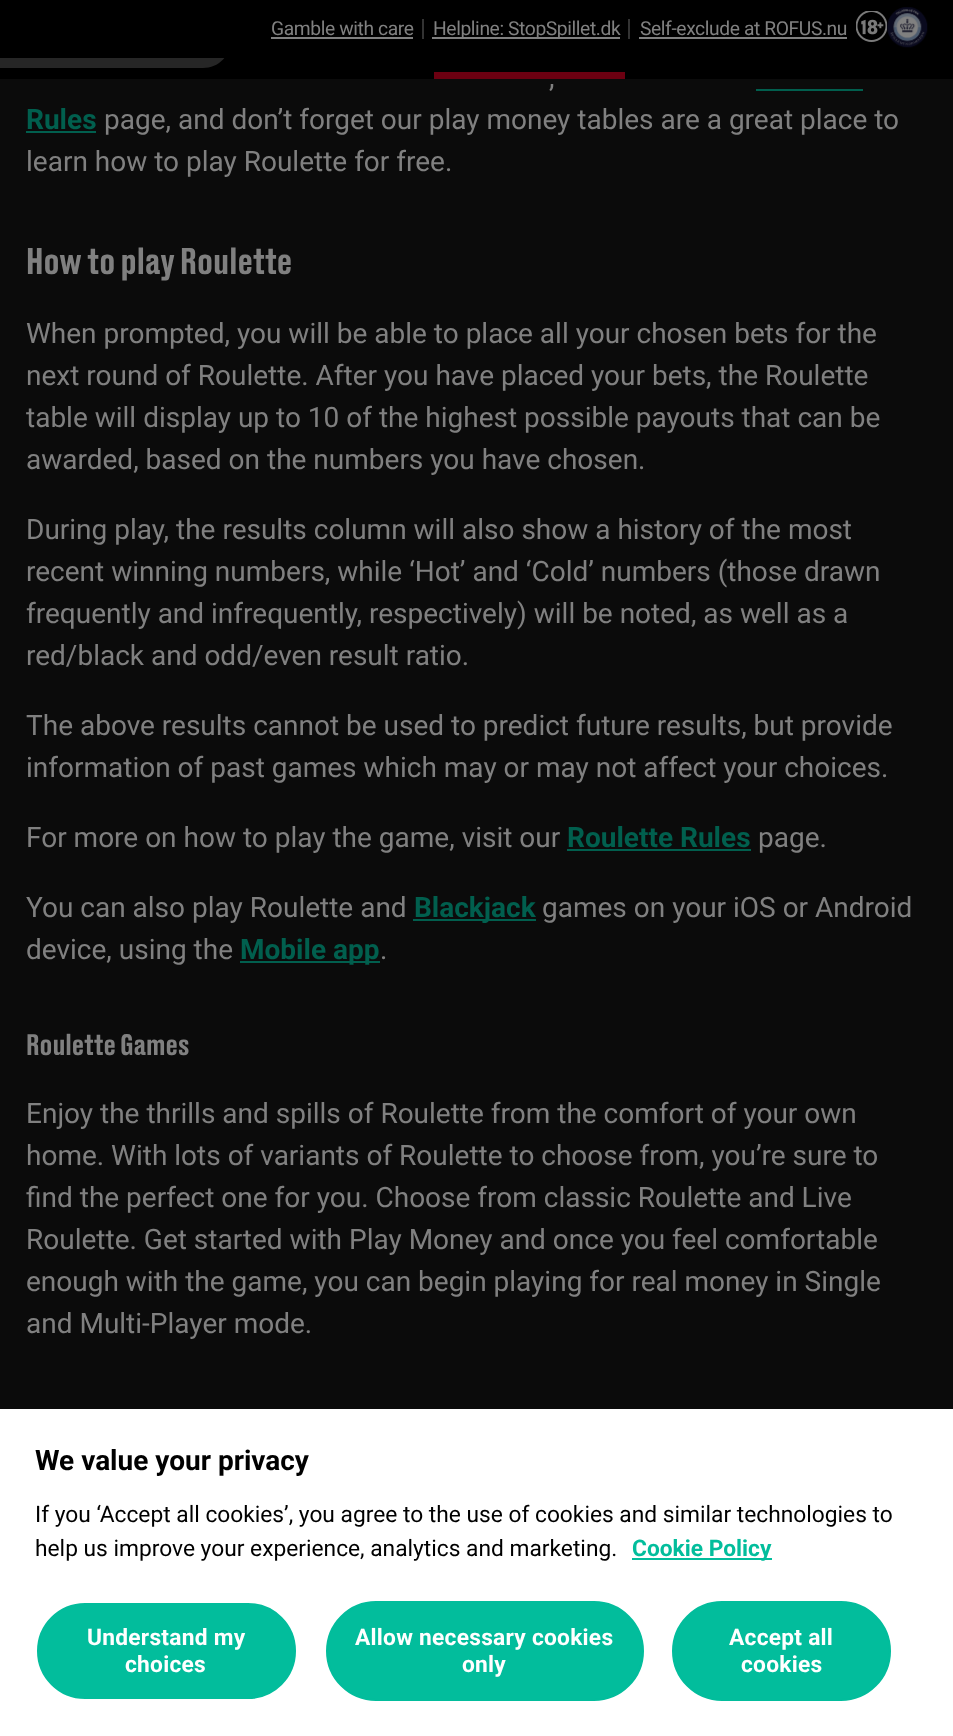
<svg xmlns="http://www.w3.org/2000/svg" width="953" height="1736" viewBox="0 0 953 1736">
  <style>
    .t1 { font: 19.25px Roboto; letter-spacing: -0.4px; fill: #808080; }
    .t2 { font: 28px Roboto; fill: #808080; }
    .t3 { font: bold 28px Roboto; fill: #015f4e; }
    .t4 { font: 500 35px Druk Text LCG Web; fill: #808080; }
    .t5 { font: 500 28px Druk Text LCG Web; fill: #808080; }
    .t6 { font: bold 28px Roboto; fill: #000; }
    .t7 { font: 22.75px Roboto; fill: #000; }
    .t8 { font: bold 22.75px Roboto; fill: #02bd9c; }
    .t9 { font: bold 22.75px Roboto; letter-spacing: 0.25px; fill: #fff; }
  </style>
  <rect width="100%" height="100%" fill="#0b0b0b"/>
  <rect x="0" y="58" width="953" height="21" fill="#000"/>
  <path d="M0 12H203C218.5 12 231 24.5 231 40C231 55.5 218.5 68 203 68H0Z" fill="#262626"/>
  <rect x="0" y="0" width="953" height="58" fill="#000"/>
  <rect x="422" y="19" width="2" height="20" fill="#333"/>
  <text x="271" y="35" class="t1">Gamble with care</text>
  <rect x="271" y="37" width="142" height="2" fill="#808080"/>
  <rect x="628" y="19" width="2" height="20" fill="#333"/>
  <rect x="432" y="37" width="188" height="2" fill="#808080"/>
  <text x="433" y="35" class="t1">Helpline: StopSpillet.dk</text>
  <text x="640" y="35" class="t1">Self-exclude at ROFUS.nu</text>
  <rect x="639" y="37" width="208" height="2" fill="#808080"/>
  <image x="856" y="11" width="31" height="31" href="images/1.png"/>
  <image x="887" y="7" width="41" height="41" href="images/2.png"/>
  <rect x="434" y="72" width="191" height="7" fill="#6c0011"/>
  <text x="549" y="87" class="t2">,</text>
  <text x="26" y="129" class="t3">Rules</text>
  <rect x="756" y="89" width="107" height="2" fill="#015f4e"/>
  <rect x="26" y="131" width="70" height="2" fill="#015f4e"/>
  <text x="104" y="129" class="t2">page, and don’t forget our play money tables are a great place to</text>
  <text x="26" y="171" class="t2">learn how to play Roulette for free.</text>
  <text x="26" y="274" class="t4">How to play Roulette</text>
  <text x="26" y="343" class="t2">When prompted, you will be able to place all your chosen bets for the</text>
  <text x="26" y="385" class="t2">next round of Roulette. After you have placed your bets, the Roulette</text>
  <text x="26" y="427" class="t2">table will display up to 10 of the highest possible payouts that can be</text>
  <text x="26" y="469" class="t2">awarded, based on the numbers you have chosen.</text>
  <text x="26" y="539" class="t2">During play, the results column will also show a history of the most</text>
  <text x="26" y="581" class="t2">recent winning numbers, while ‘Hot’ and ‘Cold’ numbers (those drawn</text>
  <text x="26" y="623" class="t2">frequently and infrequently, respectively) will be noted, as well as a</text>
  <text x="26" y="665" class="t2">red/black and odd/even result ratio.</text>
  <text x="26" y="735" class="t2">The above results cannot be used to predict future results, but provide</text>
  <text x="26" y="777" class="t2">information of past games which may or may not affect your choices.</text>
  <text x="26" y="847" class="t2">For more on how to play the game, visit our</text>
  <text x="567" y="847" class="t3">Roulette Rules</text>
  <rect x="567" y="849" width="184" height="2" fill="#015f4e"/>
  <text x="758" y="847" class="t2">page.</text>
  <text x="26" y="917" class="t2">You can also play Roulette and</text>
  <rect x="413" y="919" width="123" height="2" fill="#015f4e"/>
  <text x="414" y="917" class="t3">Blackjack</text>
  <text x="542" y="917" class="t2">games on your iOS or Android</text>
  <text x="26" y="959" class="t2">device, using the</text>
  <rect x="240" y="961" width="140" height="2" fill="#015f4e"/>
  <text x="240" y="959" class="t3">Mobile app</text>
  <text x="380" y="959" class="t2">.</text>
  <text x="26" y="1055" class="t5">Roulette Games</text>
  <text x="26" y="1123" class="t2">Enjoy the thrills and spills of Roulette from the comfort of your own</text>
  <text x="26" y="1165" class="t2">home. With lots of variants of Roulette to choose from, you’re sure to</text>
  <text x="26" y="1207" class="t2">find the perfect one for you. Choose from classic Roulette and Live</text>
  <text x="26" y="1249" class="t2">Roulette. Get started with Play Money and once you feel comfortable</text>
  <text x="26" y="1291" class="t2">enough with the game, you can begin playing for real money in Single</text>
  <text x="26" y="1333" class="t2">and Multi-Player mode.</text>
  <rect x="0" y="1409" width="953" height="327" fill="#fff"/>
  <text x="35" y="1470" class="t6">We value your privacy</text>
  <text x="35" y="1522" class="t7">If you ‘Accept all cookies’, you agree to the use of cookies and similar technologies to</text>
  <text x="35" y="1556" class="t7">help us improve your experience, analytics and marketing.</text>
  <rect x="632" y="1558" width="140" height="2" fill="#02bd9c"/>
  <text x="632" y="1556" class="t8">Cookie Policy</text>
  <rect x="36" y="1602" width="261" height="98" rx="49" fill="#02bd9c" stroke="#fff" stroke-width="2"/>
  <text x="87" y="1645" class="t9">Understand my</text>
  <text x="125" y="1672" class="t9">choices</text>
  <rect x="327" y="1602" width="316" height="98" rx="49" fill="#02bd9c" stroke="#02bd9c" stroke-width="2"/>
  <text x="355" y="1645" class="t9">Allow necessary cookies</text>
  <text x="462" y="1672" class="t9">only</text>
  <rect x="673" y="1602" width="217" height="98" rx="49" fill="#02bd9c" stroke="#02bd9c" stroke-width="2"/>
  <text x="729" y="1645" class="t9">Accept all</text>
  <text x="741" y="1672" class="t9">cookies</text>
</svg>
